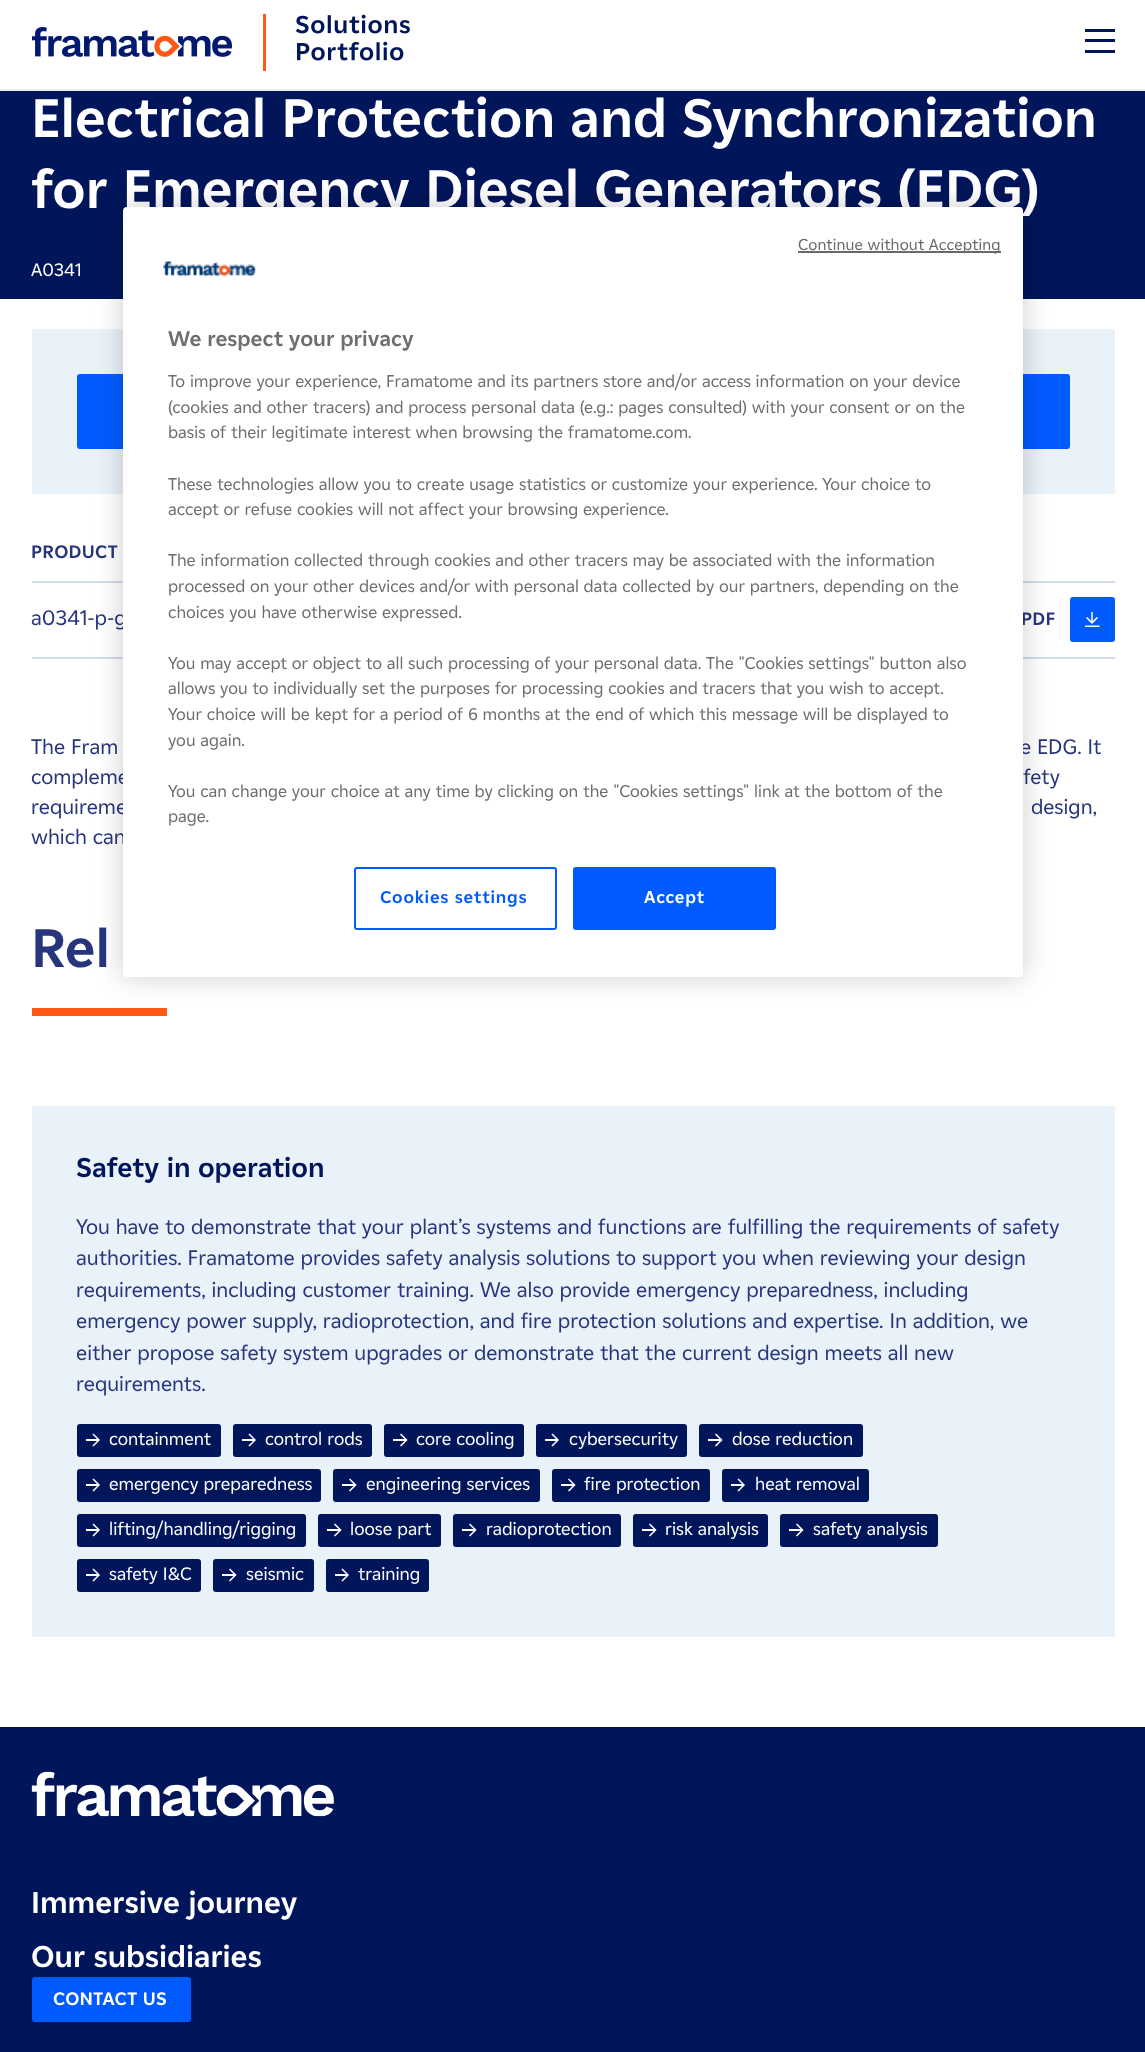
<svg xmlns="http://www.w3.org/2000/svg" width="1145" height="2052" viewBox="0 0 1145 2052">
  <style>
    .t1 { font: bold 54px 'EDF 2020'; fill: #fff; }
    .t2 { font: 18px 'EDF 2020'; fill: #fff; }
    .t3 { font: bold 18px 'EDF 2020'; letter-spacing: 0.25px; fill: #27357c; }
    .t4 { font: 21px 'EDF 2020'; fill: #27357c; }
    .t5 { font: bold 54px 'EDF 2020'; fill: #27357c; }
    .t6 { font: bold 27px 'EDF 2020'; fill: #00155a; }
    .t7 { font: bold 30px 'EDF 2020'; fill: #fff; }
    .t8 { font: bold 18px 'EDF 2020'; letter-spacing: 0.25px; fill: #fff; }
    .t9 { font: 15.75px 'EDF 2020'; letter-spacing: 0.15px; fill: #696969; }
    .t10 { font: bold 21px 'EDF 2020'; fill: #6d6e71; }
    .t11 { font: 17.05px 'EDF 2020'; fill: #6d6e71; }
    .t12 { font: bold 17.05px 'EDF 2020'; letter-spacing: 0.8px; fill: #005bff; }
    .t13 { font: bold 17.05px 'EDF 2020'; letter-spacing: 0.8px; fill: #fff; }
  </style>
  <defs>
    <clipPath id="clip1"><rect x="77" y="1212" width="993" height="189"/></clipPath>
  </defs>
  <rect width="100%" height="100%" fill="#fff"/>
  <image x="32" y="27" width="200" height="30" href="images/1.png"/>
  <rect x="263" y="14" width="3" height="57" fill="#ff5716"/>
  <image x="296" y="14" width="114" height="47" href="images/2.png"/>
  <rect x="1085" y="39" width="30" height="3" fill="#00155a"/>
  <rect x="1085" y="29" width="30" height="3" fill="#00155a"/>
  <rect x="1085" y="50" width="30" height="3" fill="#00155a"/>
  <rect x="0" y="89" width="1145" height="2" fill="#e9f1f9"/>
  <rect x="0" y="91" width="1145" height="208" fill="#00155a"/>
  <text x="31" y="137" class="t1">Electrical Protection and Synchronization</text>
  <text x="31" y="208" class="t1">for Emergency Diesel Generators (EDG)</text>
  <text x="31" y="276" class="t2">A0341</text>
  <rect x="32" y="329" width="1083" height="165" fill="#e9f1f9"/>
  <rect x="77" y="374" width="993" height="75" rx="3" fill="#005bff"/>
  <text x="31" y="558" class="t3">PRODUCT</text>
  <rect x="32" y="581" width="1083" height="2" fill="#d2dbe9"/>
  <rect x="32" y="657" width="1083" height="2" fill="#d2dbe9"/>
  <text x="31" y="625" class="t4">a0341-p-g</text>
  <text x="1021" y="625" class="t3">PDF</text>
  <rect x="1070" y="597" width="45" height="45" rx="3" fill="#005bff"/>
  <image x="1085" y="612" width="15" height="15" href="images/3.png"/>
  <text x="31" y="754" class="t4">The Fram</text>
  <text x="1020" y="754" class="t4">e EDG. It</text>
  <text x="31" y="784" class="t4">compleme</text>
  <text x="1023" y="784" class="t4">fety</text>
  <text x="31" y="814" class="t4">requireme</text>
  <text x="1031" y="814" class="t4">design,</text>
  <text x="31" y="844" class="t4">which can</text>
  <text x="31" y="967" class="t5">Rel</text>
  <rect x="32" y="1008" width="135" height="8" fill="#fe5716"/>
  <rect x="32" y="1106" width="1083" height="531" fill="#e9f1f9"/>
  <text x="76" y="1177" class="t6">Safety in operation</text>
  <text x="76" y="1234" class="t4">You have to demonstrate that your plant’s systems and functions are fulfilling the requirements of safety</text>
  <text x="76" y="1265" class="t4">authorities. Framatome provides safety analysis solutions to support you when reviewing your design</text>
  <text x="76" y="1297" class="t4">requirements, including customer training. We also provide emergency preparedness, including</text>
  <g clip-path="url(#clip1)">
    <text x="76" y="1328" class="t4">emergency power supply, radioprotection, and fire protection solutions and expertise. In addition, we</text>
    <text x="76" y="1360" class="t4">either propose safety system upgrades or demonstrate that the current design meets all new</text>
  </g>
  <text x="76" y="1391" class="t4">requirements.</text>
  <rect x="77" y="1424" width="144" height="33" rx="3" fill="#00155a"/>
  <image x="86" y="1433" width="14" height="14" href="images/4.png"/>
  <text x="109" y="1445" class="t2">containment</text>
  <rect x="233" y="1424" width="139" height="33" rx="3" fill="#00155a"/>
  <image x="242" y="1433" width="14" height="14" href="images/4.png"/>
  <text x="265" y="1445" class="t2">control rods</text>
  <rect x="384" y="1424" width="140" height="33" rx="3" fill="#00155a"/>
  <image x="393" y="1433" width="15" height="14" href="images/5.png"/>
  <text x="416" y="1445" class="t2">core cooling</text>
  <rect x="536" y="1424" width="151" height="33" rx="3" fill="#00155a"/>
  <image x="545" y="1433" width="14" height="14" href="images/4.png"/>
  <text x="569" y="1445" class="t2">cybersecurity</text>
  <rect x="699" y="1424" width="164" height="33" rx="3" fill="#00155a"/>
  <image x="708" y="1433" width="15" height="14" href="images/5.png"/>
  <text x="732" y="1445" class="t2">dose reduction</text>
  <rect x="77" y="1469" width="244" height="33" rx="3" fill="#00155a"/>
  <image x="86" y="1478" width="14" height="14" href="images/4.png"/>
  <text x="109" y="1490" class="t2">emergency preparedness</text>
  <rect x="333" y="1469" width="207" height="33" rx="3" fill="#00155a"/>
  <image x="342" y="1478" width="15" height="14" href="images/5.png"/>
  <text x="366" y="1490" class="t2">engineering services</text>
  <rect x="552" y="1469" width="158" height="33" rx="3" fill="#00155a"/>
  <image x="561" y="1478" width="15" height="14" href="images/5.png"/>
  <text x="584" y="1490" class="t2">fire protection</text>
  <rect x="722" y="1469" width="147" height="33" rx="3" fill="#00155a"/>
  <image x="731" y="1478" width="14" height="14" href="images/4.png"/>
  <text x="755" y="1490" class="t2">heat removal</text>
  <rect x="77" y="1514" width="229" height="33" rx="3" fill="#00155a"/>
  <image x="86" y="1523" width="14" height="14" href="images/4.png"/>
  <text x="109" y="1535" class="t2">lifting/handling/rigging</text>
  <rect x="318" y="1514" width="123" height="33" rx="3" fill="#00155a"/>
  <image x="327" y="1523" width="15" height="14" href="images/5.png"/>
  <text x="350" y="1535" class="t2">loose part</text>
  <rect x="453" y="1514" width="168" height="33" rx="3" fill="#00155a"/>
  <image x="462" y="1523" width="15" height="14" href="images/5.png"/>
  <text x="486" y="1535" class="t2">radioprotection</text>
  <rect x="633" y="1514" width="135" height="33" rx="3" fill="#00155a"/>
  <image x="642" y="1523" width="15" height="14" href="images/5.png"/>
  <text x="665" y="1535" class="t2">risk analysis</text>
  <rect x="780" y="1514" width="158" height="33" rx="3" fill="#00155a"/>
  <image x="789" y="1523" width="15" height="14" href="images/5.png"/>
  <text x="813" y="1535" class="t2">safety analysis</text>
  <rect x="77" y="1559" width="124" height="33" rx="3" fill="#00155a"/>
  <image x="86" y="1568" width="14" height="14" href="images/4.png"/>
  <text x="109" y="1580" class="t2">safety I&amp;C</text>
  <rect x="213" y="1559" width="101" height="33" rx="3" fill="#00155a"/>
  <image x="222" y="1568" width="15" height="14" href="images/5.png"/>
  <text x="246" y="1580" class="t2">seismic</text>
  <rect x="326" y="1559" width="103" height="33" rx="3" fill="#00155a"/>
  <image x="335" y="1568" width="14" height="14" href="images/4.png"/>
  <text x="358" y="1580" class="t2">training</text>
  <rect x="0" y="1727" width="1145" height="325" fill="#00155a"/>
  <image x="31" y="1771" width="303" height="46" href="images/6.png"/>
  <text x="31" y="1913" class="t7">Immersive journey</text>
  <text x="31" y="1967" class="t7">Our subsidiaries</text>
  <rect x="32" y="1977" width="159" height="45" rx="3" fill="#005bff"/>
  <text x="53" y="2005" class="t8">CONTACT US</text>
  <rect x="123" y="207" width="900" height="770" rx="4" fill="#00000033" filter="blur(13.5px)"/>
  <rect x="123" y="207" width="900" height="770" rx="4" fill="#fff"/>
  <rect x="798" y="251" width="203" height="2" fill="#696969"/>
  <text x="798" y="250" class="t9">Continue without Accepting</text>
  <image x="163" y="261" width="93" height="16" href="images/7.png"/>
  <text x="168" y="346" class="t10">We respect your privacy</text>
  <text x="168" y="387" class="t11">To improve your experience, Framatome and its partners store and/or access information on your device</text>
  <text x="168" y="413" class="t11">(cookies and other tracers) and process personal data (e.g.: pages consulted) with your consent or on the</text>
  <text x="168" y="438" class="t11">basis of their legitimate interest when browsing the framatome.com.</text>
  <text x="168" y="490" class="t11">These technologies allow you to create usage statistics or customize your experience. Your choice to</text>
  <text x="168" y="515" class="t11">accept or refuse cookies will not affect your browsing experience.</text>
  <text x="168" y="566" class="t11">The information collected through cookies and other tracers may be associated with the information</text>
  <text x="168" y="592" class="t11">processed on your other devices and/or with personal data collected by our partners, depending on the</text>
  <text x="168" y="618" class="t11">choices you have otherwise expressed.</text>
  <text x="168" y="669" class="t11">You may accept or object to all such processing of your personal data. The "Cookies settings" button also</text>
  <text x="168" y="694" class="t11">allows you to individually set the purposes for processing cookies and tracers that you wish to accept.</text>
  <text x="168" y="720" class="t11">Your choice will be kept for a period of 6 months at the end of which this message will be displayed to</text>
  <text x="168" y="746" class="t11">you again.</text>
  <text x="168" y="797" class="t11">You can change your choice at any time by clicking on the "Cookies settings" link at the bottom of the</text>
  <text x="168" y="822" class="t11">page.</text>
  <rect x="355" y="868" width="201" height="61" rx="2" fill="none" stroke="#005bff" stroke-width="2"/>
  <text x="380" y="903" class="t12">Cookies settings</text>
  <rect x="574" y="868" width="201" height="61" rx="2" fill="#005bff" stroke="#005bff" stroke-width="2"/>
  <text x="644" y="903" class="t13">Accept</text>
</svg>
